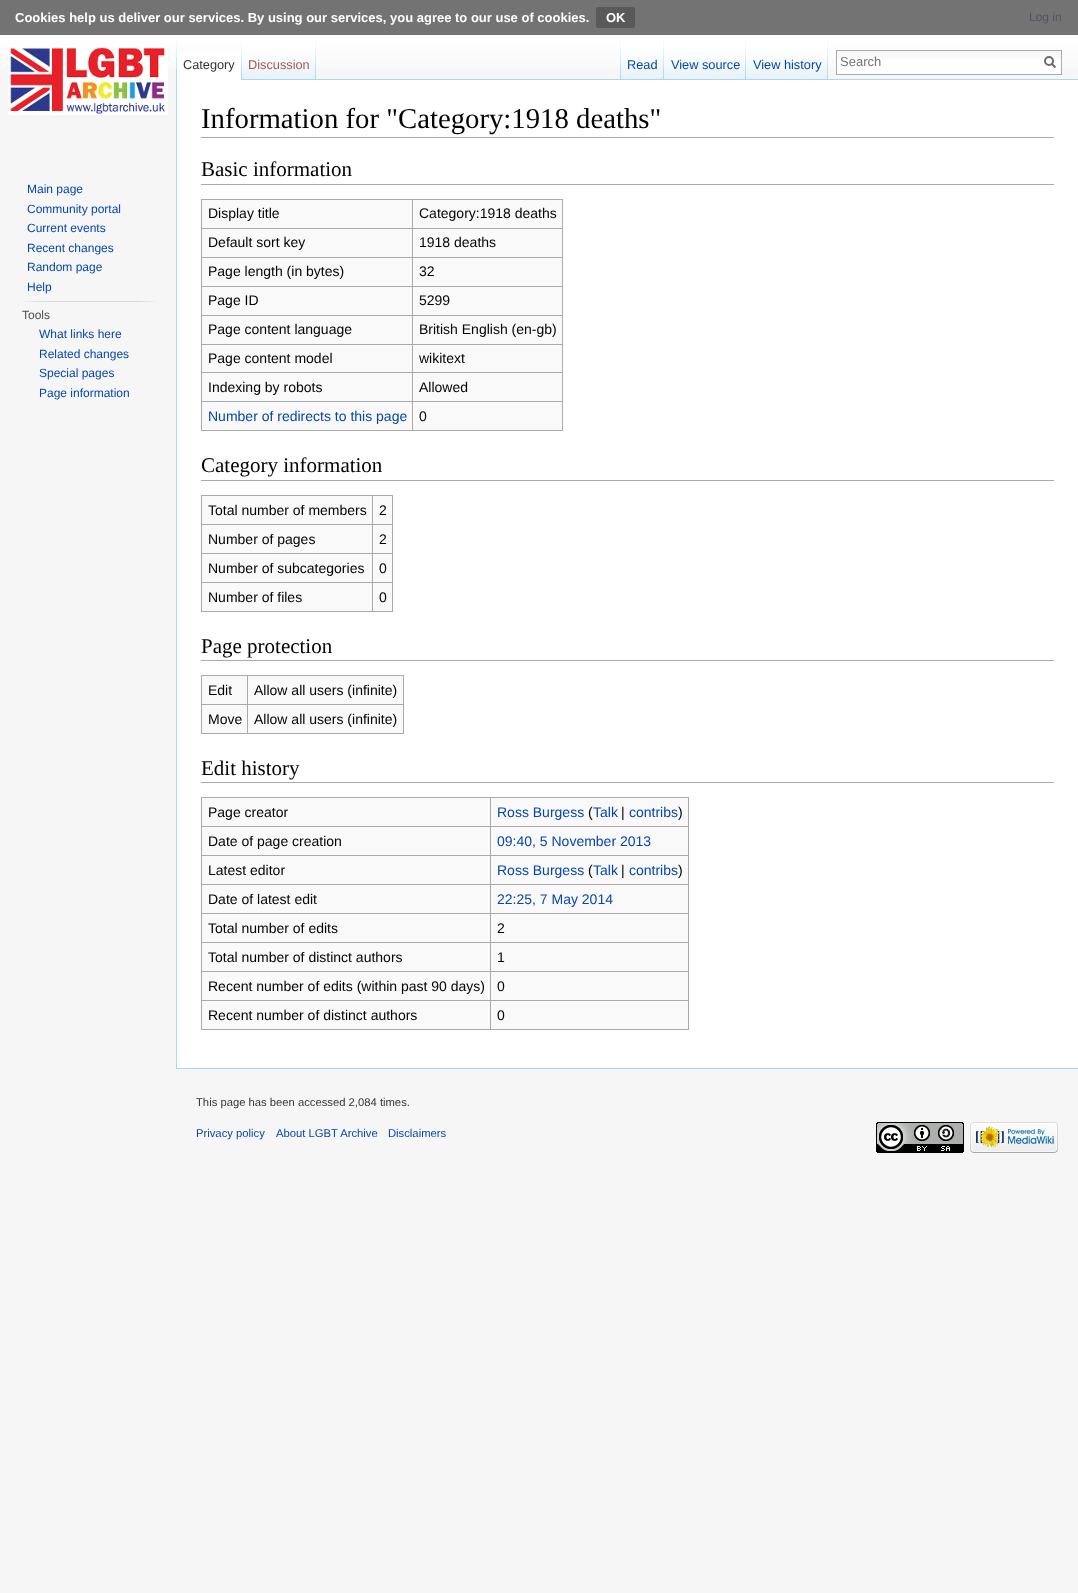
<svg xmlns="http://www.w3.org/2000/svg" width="1078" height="1593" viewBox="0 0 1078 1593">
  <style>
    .t1 { font: bold 13px Liberation Sans; fill: #fff; }
    .t2 { font: 12px Liberation Sans; fill: #4d5766; }
    .t3 { font: 12.75px Liberation Sans; fill: #333; }
    .t4 { font: 12.75px Liberation Sans; fill: #a55858; }
    .t5 { font: 12.75px Liberation Sans; fill: #0645ad; }
    .t6 { font: 13px Liberation Sans; fill: #757575; }
    .t7 { font: 12px Liberation Sans; fill: #0645ad; }
    .t8 { font: 12px Liberation Sans; fill: #4d4d4d; }
    .t9 { font: 28.75px Liberation Serif; fill: #000; }
    .t10 { font: 21px Liberation Serif; fill: #000; }
    .t11 { font: 14px Liberation Sans; fill: #000; }
    .t12 { font: 14px Liberation Sans; fill: #0645ad; }
    .t13 { font: 11.25px Liberation Sans; fill: #333; }
    .t14 { font: 11.25px Liberation Sans; fill: #0645ad; }
  </style>
  <defs>
    <linearGradient id="g1" gradientUnits="userSpaceOnUse" x1="539" y1="0" x2="539" y2="80"><stop offset="0.5" stop-color="#fff"/><stop offset="1" stop-color="#f6f6f6"/></linearGradient>
    <linearGradient id="g2" gradientUnits="userSpaceOnUse" x1="539" y1="0" x2="539" y2="80"><stop offset="0.5" stop-color="#737373"/><stop offset="1" stop-color="#717171"/></linearGradient>
  </defs>
  <rect width="100%" height="100%" fill="#f6f6f6"/>
  <rect x="0" y="35" width="1078" height="34" fill="url(#g1)"/>
  <rect x="0" y="0" width="1078" height="35" fill="url(#g2)"/>
  <text x="15" y="22" class="t1">Cookies help us deliver our services. By using our services, you agree to our use of cookies.</text>
  <rect x="596" y="7" width="39" height="21" rx="2" fill="#595959"/>
  <text x="606" y="22" class="t1">OK</text>
  <text x="1029" y="21" class="t2">Log in</text>
  <image x="176" y="40" width="1" height="39" href="images/1.png"/>
  <rect x="177" y="51" width="64" height="29" fill="#fff"/>
  <image x="241" y="40" width="1" height="40" href="images/2.png"/>
  <text x="183" y="69" class="t3">Category</text>
  <image x="242" y="40" width="74" height="40" href="images/3.png"/>
  <image x="315" y="40" width="1" height="39" href="images/4.png"/>
  <text x="248" y="69" class="t4">Discussion</text>
  <image x="620" y="40" width="1" height="39" href="images/1.png"/>
  <rect x="316" y="79" width="762" height="1" fill="#a7d7f9"/>
  <image x="621" y="40" width="43" height="40" href="images/5.png"/>
  <image x="663" y="40" width="1" height="39" href="images/4.png"/>
  <text x="627" y="69" class="t5">Read</text>
  <image x="664" y="40" width="82" height="40" href="images/6.png"/>
  <image x="745" y="40" width="1" height="39" href="images/4.png"/>
  <text x="671" y="69" class="t5">View source</text>
  <image x="746" y="40" width="82" height="40" href="images/6.png"/>
  <image x="827" y="40" width="1" height="39" href="images/4.png"/>
  <text x="753" y="69" class="t5">View history</text>
  <rect x="837" y="59" width="224" height="15" fill="#fff"/>
  <image x="837" y="51" width="224" height="8" href="images/7.png"/>
  <rect x="836.5" y="50.5" width="225" height="24" fill="none" stroke="#aaa"/>
  <text x="840" y="66" class="t6">Search</text>
  <path d="M1055.5 67.5L1051.5 63.5" fill="none" stroke="#6c6c6c" stroke-width="2"/>
  <circle cx="1049" cy="61" r="4" fill="none" stroke="#6c6c6c" stroke-width="2"/>
  <image x="8" y="47" width="160" height="68" href="images/8.png"/>
  <text x="27" y="193" class="t7">Main page</text>
  <text x="27" y="213" class="t7">Community portal</text>
  <text x="27" y="232" class="t7">Current events</text>
  <text x="27" y="252" class="t7">Recent changes</text>
  <text x="27" y="271" class="t7">Random page</text>
  <text x="27" y="291" class="t7">Help</text>
  <image x="22" y="301" width="135" height="1" href="images/9.png"/>
  <text x="22" y="319" class="t8">Tools</text>
  <text x="39" y="338" class="t7">What links here</text>
  <text x="39" y="358" class="t7">Related changes</text>
  <text x="39" y="377" class="t7">Special pages</text>
  <text x="39" y="397" class="t7">Page information</text>
  <rect x="177" y="80" width="901" height="988" fill="#fff"/>
  <rect x="176" y="1068" width="902" height="1" fill="#a7d7f9"/>
  <rect x="176" y="79" width="1" height="990" fill="#a7d7f9"/>
  <rect x="201" y="137" width="853" height="1" fill="#aaa"/>
  <text x="201" y="128" class="t9">Information for "Category:1918 deaths"</text>
  <rect x="201" y="184" width="853" height="1" fill="#aaa"/>
  <text x="201" y="176" class="t10">Basic information</text>
  <rect x="202" y="200" width="360" height="230" fill="#f9f9f9"/>
  <rect x="201" y="199" width="362" height="1" fill="#aaa"/>
  <rect x="562" y="199" width="1" height="232" fill="#aaa"/>
  <rect x="201" y="430" width="362" height="1" fill="#aaa"/>
  <rect x="201" y="199" width="1" height="232" fill="#aaa"/>
  <text x="208" y="218" class="t11">Display title</text>
  <rect x="412" y="228" width="151" height="1" fill="#aaa"/>
  <rect x="412" y="257" width="151" height="1" fill="#aaa"/>
  <rect x="412" y="286" width="151" height="1" fill="#aaa"/>
  <rect x="412" y="315" width="151" height="1" fill="#aaa"/>
  <rect x="412" y="344" width="151" height="1" fill="#aaa"/>
  <rect x="412" y="372" width="151" height="1" fill="#aaa"/>
  <rect x="412" y="401" width="151" height="1" fill="#aaa"/>
  <rect x="412" y="401" width="1" height="30" fill="#aaa"/>
  <rect x="201" y="401" width="212" height="1" fill="#aaa"/>
  <rect x="412" y="372" width="1" height="30" fill="#aaa"/>
  <rect x="201" y="372" width="212" height="1" fill="#aaa"/>
  <rect x="412" y="344" width="1" height="29" fill="#aaa"/>
  <rect x="201" y="344" width="212" height="1" fill="#aaa"/>
  <rect x="412" y="315" width="1" height="30" fill="#aaa"/>
  <rect x="201" y="315" width="212" height="1" fill="#aaa"/>
  <rect x="412" y="286" width="1" height="30" fill="#aaa"/>
  <rect x="201" y="286" width="212" height="1" fill="#aaa"/>
  <rect x="412" y="257" width="1" height="30" fill="#aaa"/>
  <rect x="201" y="257" width="212" height="1" fill="#aaa"/>
  <rect x="412" y="228" width="1" height="30" fill="#aaa"/>
  <rect x="201" y="228" width="212" height="1" fill="#aaa"/>
  <rect x="412" y="199" width="1" height="30" fill="#aaa"/>
  <text x="419" y="218" class="t11">Category:1918 deaths</text>
  <text x="208" y="247" class="t11">Default sort key</text>
  <text x="419" y="247" class="t11">1918 deaths</text>
  <text x="208" y="276" class="t11">Page length (in bytes)</text>
  <text x="419" y="276" class="t11">32</text>
  <text x="208" y="305" class="t11">Page ID</text>
  <text x="419" y="305" class="t11">5299</text>
  <text x="208" y="334" class="t11">Page content language</text>
  <text x="419" y="334" class="t11">British English (en-gb)</text>
  <text x="208" y="363" class="t11">Page content model</text>
  <text x="419" y="363" class="t11">wikitext</text>
  <text x="208" y="392" class="t11">Indexing by robots</text>
  <text x="419" y="392" class="t11">Allowed</text>
  <text x="208" y="421" class="t12">Number of redirects to this page</text>
  <text x="419" y="421" class="t11">0</text>
  <rect x="201" y="480" width="853" height="1" fill="#aaa"/>
  <text x="201" y="472" class="t10">Category information</text>
  <rect x="202" y="496" width="190" height="115" fill="#f9f9f9"/>
  <rect x="201" y="495" width="192" height="1" fill="#aaa"/>
  <rect x="392" y="495" width="1" height="117" fill="#aaa"/>
  <rect x="201" y="611" width="192" height="1" fill="#aaa"/>
  <rect x="201" y="495" width="1" height="117" fill="#aaa"/>
  <text x="208" y="515" class="t11">Total number of members</text>
  <rect x="372" y="524" width="21" height="1" fill="#aaa"/>
  <rect x="372" y="553" width="21" height="1" fill="#aaa"/>
  <rect x="372" y="582" width="21" height="1" fill="#aaa"/>
  <rect x="372" y="582" width="1" height="30" fill="#aaa"/>
  <rect x="201" y="582" width="172" height="1" fill="#aaa"/>
  <rect x="372" y="553" width="1" height="30" fill="#aaa"/>
  <rect x="201" y="553" width="172" height="1" fill="#aaa"/>
  <rect x="372" y="524" width="1" height="30" fill="#aaa"/>
  <rect x="201" y="524" width="172" height="1" fill="#aaa"/>
  <rect x="372" y="495" width="1" height="30" fill="#aaa"/>
  <text x="379" y="515" class="t11">2</text>
  <text x="208" y="544" class="t11">Number of pages</text>
  <text x="379" y="544" class="t11">2</text>
  <text x="208" y="573" class="t11">Number of subcategories</text>
  <text x="379" y="573" class="t11">0</text>
  <text x="208" y="602" class="t11">Number of files</text>
  <text x="379" y="602" class="t11">0</text>
  <rect x="201" y="660" width="853" height="1" fill="#aaa"/>
  <text x="201" y="653" class="t10">Page protection</text>
  <rect x="202" y="676" width="201" height="57" fill="#f9f9f9"/>
  <rect x="201" y="675" width="203" height="1" fill="#aaa"/>
  <rect x="403" y="675" width="1" height="59" fill="#aaa"/>
  <rect x="201" y="733" width="203" height="1" fill="#aaa"/>
  <rect x="201" y="675" width="1" height="59" fill="#aaa"/>
  <text x="208" y="695" class="t11">Edit</text>
  <rect x="247" y="704" width="157" height="1" fill="#aaa"/>
  <rect x="247" y="704" width="1" height="30" fill="#aaa"/>
  <rect x="201" y="704" width="47" height="1" fill="#aaa"/>
  <rect x="247" y="675" width="1" height="30" fill="#aaa"/>
  <text x="254" y="695" class="t11">Allow all users (infinite)</text>
  <text x="208" y="724" class="t11">Move</text>
  <text x="254" y="724" class="t11">Allow all users (infinite)</text>
  <rect x="201" y="782" width="853" height="1" fill="#aaa"/>
  <text x="201" y="775" class="t10">Edit history</text>
  <rect x="202" y="798" width="486" height="231" fill="#f9f9f9"/>
  <rect x="201" y="797" width="488" height="1" fill="#aaa"/>
  <rect x="688" y="797" width="1" height="233" fill="#aaa"/>
  <rect x="201" y="1029" width="488" height="1" fill="#aaa"/>
  <rect x="201" y="797" width="1" height="233" fill="#aaa"/>
  <text x="208" y="817" class="t11">Page creator</text>
  <rect x="490" y="826" width="199" height="1" fill="#aaa"/>
  <rect x="490" y="855" width="199" height="1" fill="#aaa"/>
  <rect x="490" y="884" width="199" height="1" fill="#aaa"/>
  <rect x="490" y="913" width="199" height="1" fill="#aaa"/>
  <rect x="490" y="942" width="199" height="1" fill="#aaa"/>
  <rect x="490" y="971" width="199" height="1" fill="#aaa"/>
  <rect x="490" y="1000" width="199" height="1" fill="#aaa"/>
  <rect x="490" y="1000" width="1" height="30" fill="#aaa"/>
  <rect x="201" y="1000" width="290" height="1" fill="#aaa"/>
  <rect x="490" y="971" width="1" height="30" fill="#aaa"/>
  <rect x="201" y="971" width="290" height="1" fill="#aaa"/>
  <rect x="490" y="942" width="1" height="30" fill="#aaa"/>
  <rect x="201" y="942" width="290" height="1" fill="#aaa"/>
  <rect x="490" y="913" width="1" height="30" fill="#aaa"/>
  <rect x="201" y="913" width="290" height="1" fill="#aaa"/>
  <rect x="490" y="884" width="1" height="30" fill="#aaa"/>
  <rect x="201" y="884" width="290" height="1" fill="#aaa"/>
  <rect x="490" y="855" width="1" height="30" fill="#aaa"/>
  <rect x="201" y="855" width="290" height="1" fill="#aaa"/>
  <rect x="490" y="826" width="1" height="30" fill="#aaa"/>
  <rect x="201" y="826" width="290" height="1" fill="#aaa"/>
  <rect x="490" y="797" width="1" height="30" fill="#aaa"/>
  <text x="497" y="817" class="t12">Ross Burgess</text>
  <text x="588" y="817" class="t11">(</text>
  <text x="593" y="817" class="t12">Talk</text>
  <text x="621" y="817" class="t11">|</text>
  <text x="629" y="817" class="t12">contribs</text>
  <text x="678" y="817" class="t11">)</text>
  <text x="208" y="846" class="t11">Date of page creation</text>
  <text x="497" y="846" class="t12">09:40, 5 November 2013</text>
  <text x="208" y="875" class="t11">Latest editor</text>
  <text x="497" y="875" class="t12">Ross Burgess</text>
  <text x="588" y="875" class="t11">(</text>
  <text x="593" y="875" class="t12">Talk</text>
  <text x="621" y="875" class="t11">|</text>
  <text x="629" y="875" class="t12">contribs</text>
  <text x="678" y="875" class="t11">)</text>
  <text x="208" y="904" class="t11">Date of latest edit</text>
  <text x="497" y="904" class="t12">22:25, 7 May 2014</text>
  <text x="208" y="933" class="t11">Total number of edits</text>
  <text x="497" y="933" class="t11">2</text>
  <text x="208" y="962" class="t11">Total number of distinct authors</text>
  <text x="497" y="962" class="t11">1</text>
  <text x="208" y="991" class="t11">Recent number of edits (within past 90 days)</text>
  <text x="497" y="991" class="t11">0</text>
  <text x="208" y="1020" class="t11">Recent number of distinct authors</text>
  <text x="497" y="1020" class="t11">0</text>
  <text x="196" y="1106" class="t13">This page has been accessed 2,084 times.</text>
  <text x="196" y="1137" class="t14">Privacy policy</text>
  <text x="276" y="1137" class="t14">About LGBT Archive</text>
  <text x="388" y="1137" class="t14">Disclaimers</text>
  <image x="876" y="1122" width="88" height="31" href="images/10.png"/>
  <image x="970" y="1122" width="88" height="31" href="images/11.png"/>
</svg>
